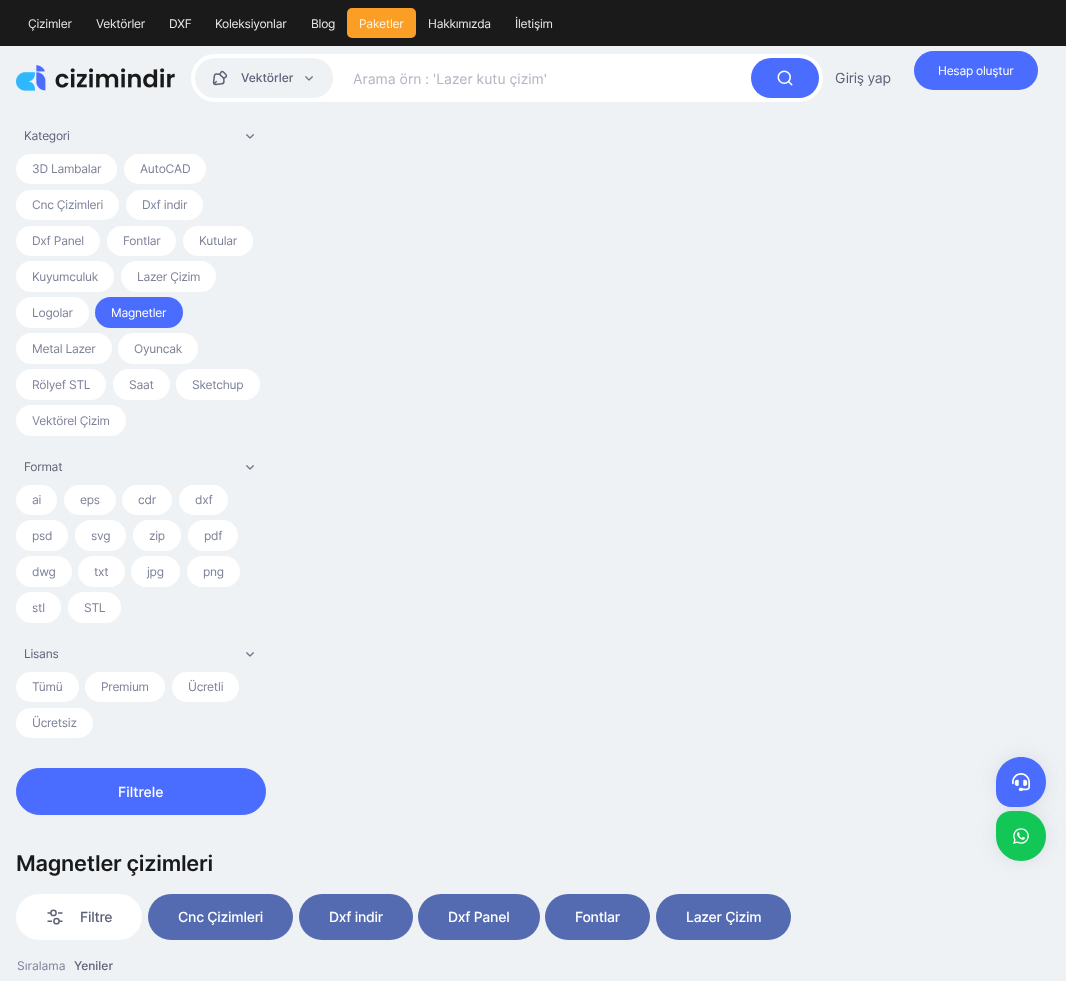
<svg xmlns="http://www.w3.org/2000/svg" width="1066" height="981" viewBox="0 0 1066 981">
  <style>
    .t1 { font: 12px Inter; letter-spacing: -0.25px; fill: #e8e8e8; }
    .t2 { font: 12px Inter; letter-spacing: -0.25px; fill: #fff5e9; }
    .t3 { font: 500 12px Inter; fill: #5e6278; }
    .t4 { font: 14px Inter; fill: #b5b5c3; }
    .t5 { font: 14px Inter; letter-spacing: -0.25px; fill: #5e6278; }
    .t6 { font: 12px Inter; letter-spacing: -0.25px; fill: #fff; }
    .t7 { font: 12px Inter; letter-spacing: -0.25px; fill: #5e6278; }
    .t8 { font: 12px Inter; letter-spacing: -0.25px; fill: #7e8299; }
    .t9 { font: 500 14px Inter; fill: #fff; }
    .t10 { font: 600 21.75px Inter; letter-spacing: -0.25px; fill: #1a1a1a; }
    .t11 { font: 500 14px Inter; letter-spacing: -0.25px; fill: #5e6278; }
    .t12 { font: 500 14px Inter; letter-spacing: -0.25px; fill: #fff; }
    .t13 { font: 12px Inter; fill: #7e8299; }
  </style>
  <rect width="100%" height="100%" fill="#eff2f5"/>
  <rect x="0" y="0" width="1066" height="46" fill="#1a1a1a"/>
  <text x="28" y="28" class="t1">Çizimler</text>
  <text x="96" y="28" class="t1">Vektörler</text>
  <text x="169" y="28" class="t1">DXF</text>
  <text x="215" y="28" class="t1">Koleksiyonlar</text>
  <text x="311" y="28" class="t1">Blog</text>
  <rect x="347" y="8" width="69" height="30" rx="5" fill="#fa9e25"/>
  <text x="359" y="28" class="t2">Paketler</text>
  <text x="428" y="28" class="t1">Hakkımızda</text>
  <text x="515" y="28" class="t1">İletişim</text>
  <image x="16" y="65" width="159" height="26" href="images/1.png"/>
  <rect x="191" y="54" width="632" height="48" rx="24" fill="#fff"/>
  <rect x="195" y="58" width="138" height="40" rx="20" fill="#eff2f5"/>
  <image x="212" y="70" width="16" height="16" href="images/2.png"/>
  <text x="241" y="82" class="t3">Vektörler</text>
  <image x="305" y="76" width="8" height="5" href="images/3.png"/>
  <text x="353" y="84" class="t4">Arama örn : 'Lazer kutu çizim'</text>
  <rect x="751" y="58" width="68" height="40" rx="20" fill="#4a6dff"/>
  <image x="777" y="70" width="16" height="16" href="images/4.png"/>
  <text x="835" y="83" class="t5">Giriş yap</text>
  <rect x="914" y="51" width="124" height="39" rx="19.5" fill="#4a6dff"/>
  <text x="938" y="75" class="t6">Hesap oluştur</text>
  <text x="24" y="140" class="t7">Kategori</text>
  <image x="246" y="134" width="8" height="5" href="images/3.png"/>
  <rect x="16" y="154" width="101" height="30" rx="15" fill="#fff"/>
  <text x="32" y="173" class="t8">3D Lambalar</text>
  <rect x="124" y="154" width="82" height="30" rx="15" fill="#fff"/>
  <text x="140" y="173" class="t8">AutoCAD</text>
  <rect x="16" y="190" width="103" height="30" rx="15" fill="#fff"/>
  <text x="32" y="209" class="t8">Cnc Çizimleri</text>
  <rect x="126" y="190" width="77" height="30" rx="15" fill="#fff"/>
  <text x="142" y="209" class="t8">Dxf indir</text>
  <rect x="16" y="226" width="84" height="30" rx="15" fill="#fff"/>
  <text x="32" y="245" class="t8">Dxf Panel</text>
  <rect x="107" y="226" width="69" height="30" rx="15" fill="#fff"/>
  <text x="123" y="245" class="t8">Fontlar</text>
  <rect x="183" y="226" width="70" height="30" rx="15" fill="#fff"/>
  <text x="199" y="245" class="t8">Kutular</text>
  <rect x="16" y="261" width="98" height="31" rx="15.5" fill="#fff"/>
  <text x="32" y="281" class="t8">Kuyumculuk</text>
  <rect x="121" y="261" width="95" height="31" rx="15.5" fill="#fff"/>
  <text x="137" y="281" class="t8">Lazer Çizim</text>
  <rect x="16" y="297" width="73" height="31" rx="15.5" fill="#fff"/>
  <text x="32" y="317" class="t8">Logolar</text>
  <rect x="95" y="297" width="88" height="31" rx="15.5" fill="#4a6dff"/>
  <text x="111" y="317" class="t6">Magnetler</text>
  <rect x="16" y="333" width="96" height="31" rx="15.5" fill="#fff"/>
  <text x="32" y="353" class="t8">Metal Lazer</text>
  <rect x="118" y="333" width="80" height="31" rx="15.5" fill="#fff"/>
  <text x="134" y="353" class="t8">Oyuncak</text>
  <rect x="16" y="369" width="90" height="31" rx="15.5" fill="#fff"/>
  <text x="32" y="389" class="t8">Rölyef STL</text>
  <rect x="113" y="369" width="57" height="31" rx="15.5" fill="#fff"/>
  <text x="129" y="389" class="t8">Saat</text>
  <rect x="176" y="369" width="84" height="31" rx="15.5" fill="#fff"/>
  <text x="192" y="389" class="t8">Sketchup</text>
  <rect x="16" y="405" width="110" height="31" rx="15.5" fill="#fff"/>
  <text x="32" y="425" class="t8">Vektörel Çizim</text>
  <text x="24" y="471" class="t7">Format</text>
  <image x="246" y="465" width="8" height="5" href="images/3.png"/>
  <rect x="16" y="485" width="41" height="30" rx="15" fill="#fff"/>
  <text x="32" y="504" class="t8">ai</text>
  <rect x="64" y="485" width="52" height="30" rx="15" fill="#fff"/>
  <text x="80" y="504" class="t8">eps</text>
  <rect x="122" y="485" width="50" height="30" rx="15" fill="#fff"/>
  <text x="138" y="504" class="t8">cdr</text>
  <rect x="179" y="485" width="49" height="30" rx="15" fill="#fff"/>
  <text x="195" y="504" class="t8">dxf</text>
  <rect x="16" y="520" width="52" height="31" rx="15.5" fill="#fff"/>
  <text x="32" y="540" class="t8">psd</text>
  <rect x="75" y="520" width="51" height="31" rx="15.5" fill="#fff"/>
  <text x="91" y="540" class="t8">svg</text>
  <rect x="133" y="520" width="48" height="31" rx="15.5" fill="#fff"/>
  <text x="149" y="540" class="t8">zip</text>
  <rect x="188" y="520" width="50" height="31" rx="15.5" fill="#fff"/>
  <text x="204" y="540" class="t8">pdf</text>
  <rect x="16" y="556" width="56" height="31" rx="15.5" fill="#fff"/>
  <text x="32" y="576" class="t8">dwg</text>
  <rect x="78" y="556" width="47" height="31" rx="15.5" fill="#fff"/>
  <text x="94" y="576" class="t8">txt</text>
  <rect x="131" y="556" width="49" height="31" rx="15.5" fill="#fff"/>
  <text x="147" y="576" class="t8">jpg</text>
  <rect x="187" y="556" width="53" height="31" rx="15.5" fill="#fff"/>
  <text x="203" y="576" class="t8">png</text>
  <rect x="16" y="592" width="45" height="31" rx="15.5" fill="#fff"/>
  <text x="32" y="612" class="t8">stl</text>
  <rect x="68" y="592" width="53" height="31" rx="15.5" fill="#fff"/>
  <text x="84" y="612" class="t8">STL</text>
  <text x="24" y="658" class="t7">Lisans</text>
  <image x="246" y="652" width="8" height="5" href="images/3.png"/>
  <rect x="16" y="672" width="63" height="30" rx="15" fill="#fff"/>
  <text x="32" y="691" class="t8">Tümü</text>
  <rect x="85" y="672" width="80" height="30" rx="15" fill="#fff"/>
  <text x="101" y="691" class="t8">Premium</text>
  <rect x="172" y="672" width="67" height="30" rx="15" fill="#fff"/>
  <text x="188" y="691" class="t8">Ücretli</text>
  <rect x="16" y="708" width="77" height="30" rx="15" fill="#fff"/>
  <text x="32" y="727" class="t8">Ücretsiz</text>
  <rect x="16.5" y="768.5" width="249" height="46" rx="23" fill="#4a6dff" stroke="#4a6dff"/>
  <text x="118" y="797" class="t9">Filtrele</text>
  <text x="16" y="871" class="t10">Magnetler çizimleri</text>
  <rect x="16" y="894" width="126" height="46" rx="23" fill="#fff"/>
  <image x="47" y="909" width="16" height="16" href="images/5.png"/>
  <text x="80" y="922" class="t11">Filtre</text>
  <rect x="148" y="894" width="145" height="46" rx="23" fill="#546bb1"/>
  <text x="178" y="922" class="t12">Cnc Çizimleri</text>
  <rect x="299" y="894" width="114" height="46" rx="23" fill="#546bb1"/>
  <text x="329" y="922" class="t12">Dxf indir</text>
  <rect x="418" y="894" width="122" height="46" rx="23" fill="#546bb1"/>
  <text x="448" y="922" class="t12">Dxf Panel</text>
  <rect x="545" y="894" width="105" height="46" rx="23" fill="#546bb1"/>
  <text x="575" y="922" class="t12">Fontlar</text>
  <rect x="656" y="894" width="135" height="46" rx="23" fill="#546bb1"/>
  <text x="686" y="922" class="t12">Lazer Çizim</text>
  <text x="17" y="970" class="t13">Sıralama</text>
  <text x="74" y="970" class="t3">Yeniler</text>
  <rect x="996" y="757" width="50" height="50" rx="25" fill="#5e627826" filter="blur(10px)"/>
  <path d="M1021 757C1035 757 1046 768 1046 782C1046 796 1035 807 1021 807H1011C1002.5 807 996 800.5 996 792V782C996 768 1007 757 1021 757Z" fill="#4a6dff"/>
  <image x="1012" y="773" width="18" height="18" href="images/6.png"/>
  <rect x="996" y="811" width="50" height="50" rx="25" fill="#5e627826" filter="blur(10px)"/>
  <path d="M1011 811H1021C1035 811 1046 822 1046 836C1046 850 1035 861 1021 861C1007 861 996 850 996 836V826C996 817.5 1002.5 811 1011 811Z" fill="#13c757"/>
  <image x="1013" y="828" width="16" height="16" href="images/7.png"/>
</svg>
